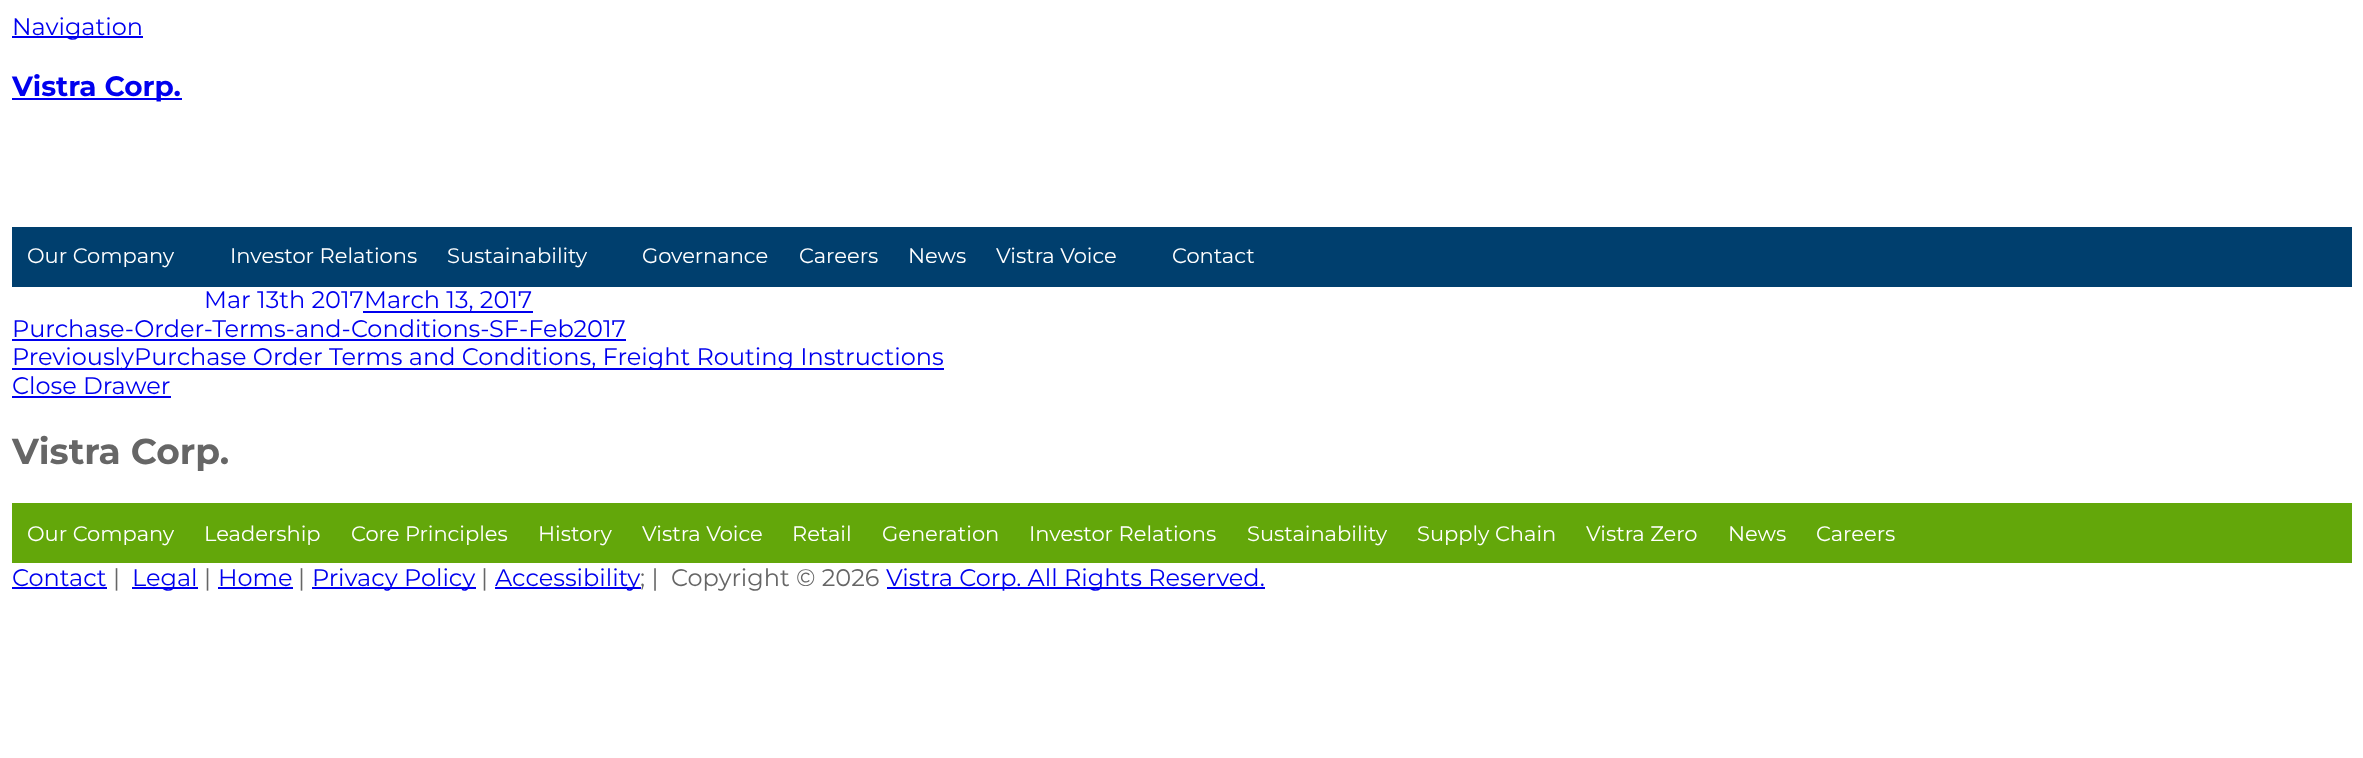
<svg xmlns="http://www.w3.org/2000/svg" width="2363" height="758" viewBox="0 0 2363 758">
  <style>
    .t1 { font: 24px Montserrat; fill: #00e; }
    .t2 { font: bold 28px Montserrat; fill: #00e; }
    .t3 { font: 21px Montserrat; fill: #fff; }
    .t4 { font: bold 36px Montserrat; fill: #666; }
    .t5 { font: 24px Montserrat; fill: #666; }
  </style>
  <rect width="100%" height="100%" fill="#fff"/>
  <rect x="12" y="36" width="131" height="2" fill="#00e"/>
  <text x="12" y="35" class="t1">Navigation</text>
  <rect x="12" y="98" width="170" height="2" fill="#00e"/>
  <text x="12" y="96" class="t2">Vistra Corp.</text>
  <rect x="12" y="227" width="2340" height="60" fill="#003f6e"/>
  <text x="27" y="263" class="t3">Our Company</text>
  <text x="230" y="263" class="t3">Investor Relations</text>
  <text x="447" y="263" class="t3">Sustainability</text>
  <text x="642" y="263" class="t3">Governance</text>
  <text x="799" y="263" class="t3">Careers</text>
  <text x="908" y="263" class="t3">News</text>
  <text x="996" y="263" class="t3">Vistra Voice</text>
  <text x="1172" y="263" class="t3">Contact</text>
  <text x="204" y="308" class="t1">Mar 13th 2017</text>
  <rect x="363" y="311" width="170" height="2" fill="#00e"/>
  <text x="364" y="308" class="t1">March 13, 2017</text>
  <text x="12" y="337" class="t1">Purchase-Order-Terms-and-Conditions-SF-Feb2017</text>
  <rect x="12" y="339" width="614" height="2" fill="#00e"/>
  <rect x="12" y="368" width="932" height="2" fill="#00e"/>
  <text x="12" y="365" class="t1">PreviouslyPurchase Order Terms and Conditions, Freight Routing Instructions</text>
  <text x="12" y="394" class="t1">Close Drawer</text>
  <rect x="12" y="396" width="159" height="2" fill="#00e"/>
  <text x="12" y="464" class="t4">Vistra Corp.</text>
  <rect x="12" y="503" width="2340" height="60" fill="#63a70a"/>
  <text x="27" y="541" class="t3">Our Company</text>
  <text x="204" y="541" class="t3">Leadership</text>
  <text x="351" y="541" class="t3">Core Principles</text>
  <text x="538" y="541" class="t3">History</text>
  <text x="642" y="541" class="t3">Vistra Voice</text>
  <text x="792" y="541" class="t3">Retail</text>
  <text x="882" y="541" class="t3">Generation</text>
  <text x="1029" y="541" class="t3">Investor Relations</text>
  <text x="1247" y="541" class="t3">Sustainability</text>
  <text x="1417" y="541" class="t3">Supply Chain</text>
  <text x="1586" y="541" class="t3">Vistra Zero</text>
  <text x="1728" y="541" class="t3">News</text>
  <text x="1816" y="541" class="t3">Careers</text>
  <text x="12" y="586" class="t1">Contact</text>
  <rect x="12" y="587" width="95" height="2" fill="#00e"/>
  <text x="113" y="586" class="t5">|</text>
  <rect x="132" y="587" width="66" height="2" fill="#00e"/>
  <text x="132" y="586" class="t1">Legal</text>
  <text x="204" y="586" class="t5">|</text>
  <text x="218" y="586" class="t1">Home</text>
  <rect x="218" y="587" width="75" height="2" fill="#00e"/>
  <text x="298" y="586" class="t5">|</text>
  <rect x="312" y="587" width="164" height="2" fill="#00e"/>
  <text x="312" y="586" class="t1">Privacy Policy</text>
  <text x="481" y="586" class="t5">|</text>
  <rect x="495" y="587" width="146" height="2" fill="#00e"/>
  <text x="495" y="586" class="t1">Accessibility</text>
  <text x="640" y="586" class="t5">; |</text>
  <text x="671" y="586" class="t5">Copyright © 2026</text>
  <rect x="887" y="587" width="378" height="2" fill="#00e"/>
  <text x="886" y="586" class="t1">Vistra Corp. All Rights Reserved.</text>
</svg>
